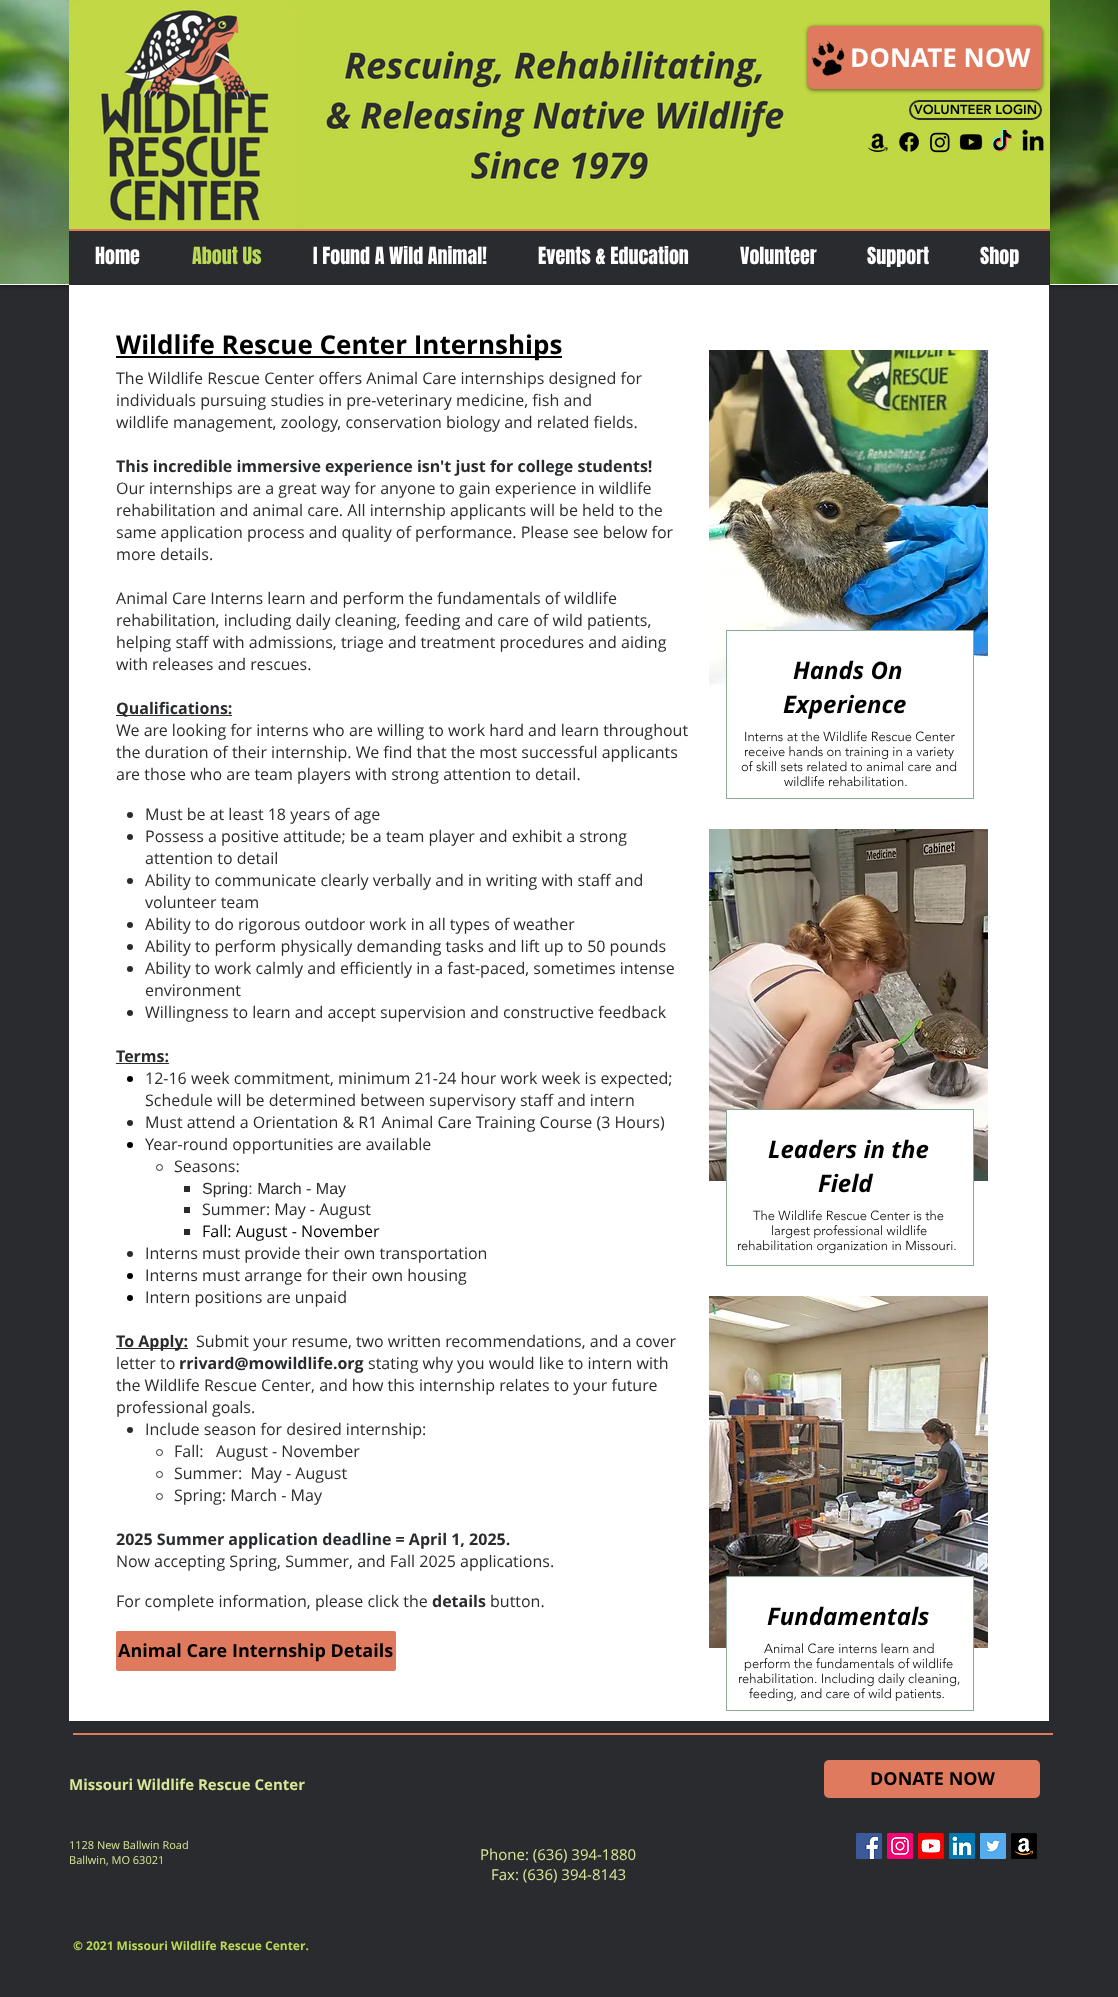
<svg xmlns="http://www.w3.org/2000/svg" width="1118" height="1997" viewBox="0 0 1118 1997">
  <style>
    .t1 { font: bold 26px Open Sans; fill: #fff; }
    .t2 { font: 900 13px 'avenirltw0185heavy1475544'; fill: #000; }
    .t3 { font: 20px Anton; fill: #fff; }
    .t4 { font: 20px Anton; fill: #bada55; }
    .t5 { font: bold 26px Open Sans; fill: #000; }
    .t6 { font: 16px Open Sans; fill: #2a2b2e; }
    .t7 { font: bold 16px Open Sans; fill: #2a2b2e; }
    .t8 { font: 16px Liberation Sans; fill: #2a2b2e; }
    .t9 { font: 16px Open Sans; fill: #000; }
    .t10 { font: bold 18px Open Sans; fill: #000; }
    .t11 { font: italic bold 24px Open Sans; fill: #000; }
    .t12 { font: 300 13px 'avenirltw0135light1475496'; fill: #000; }
    .t13 { font: bold 15px Open Sans; fill: #d9e697; }
    .t14 { font: 11px Open Sans; fill: #d9e697; }
    .t15 { font: 15px Open Sans; fill: #d9e697; }
    .t16 { font: bold 12px Open Sans; fill: #bada55; }
  </style>
  <rect width="100%" height="100%" fill="#2a2b2e"/>
  <rect x="0" y="0" width="1118" height="285" fill="#000000b3" filter="blur(2.5px)"/>
  <rect x="0" y="284" width="1118" height="1" fill="#fff"/>
  <image x="0" y="0" width="1118" height="284" href="images/1.png"/>
  <image x="69" y="0" width="981" height="229" href="images/2.png"/>
  <rect x="808" y="27" width="234" height="63" rx="5" fill="#00000099" filter="blur(2px)"/>
  <rect x="808" y="26" width="234" height="63" rx="5" fill="#e07a5f"/>
  <image x="812" y="40" width="33" height="38" href="images/3.png"/>
  <text x="850" y="67" class="t1">DONATE NOW</text>
  <rect x="910" y="101" width="131" height="18" rx="9" fill="none" stroke="#2a2b2e" stroke-width="2"/>
  <text x="914" y="114" class="t2">VOLUNTEER LOGIN</text>
  <image x="868" y="133" width="20" height="19" href="images/4.png"/>
  <image x="899" y="132" width="20" height="20" href="images/5.png"/>
  <image x="930" y="132" width="20" height="21" href="images/6.png"/>
  <image x="959" y="134" width="24" height="16" href="images/7.png"/>
  <image x="992" y="129" width="20" height="23" href="images/8.png"/>
  <image x="1022" y="129" width="22" height="22" href="images/9.png"/>
  <rect x="69" y="229" width="981" height="2" fill="#e07a5f"/>
  <rect x="69" y="231" width="981" height="54" fill="#2a2b2e"/>
  <text x="95" y="264" class="t3">Home</text>
  <text x="192" y="264" class="t4">About Us</text>
  <text x="313" y="264" class="t3">I Found A Wild Animal!</text>
  <text x="538" y="264" class="t3">Events &amp; Education</text>
  <text x="740" y="264" class="t3">Volunteer</text>
  <text x="867" y="264" class="t3">Support</text>
  <text x="980" y="264" class="t3">Shop</text>
  <rect x="69" y="285" width="980" height="1436" fill="#fff"/>
  <rect x="116" y="356" width="446" height="2" fill="#000"/>
  <text x="116" y="354" class="t5">Wildlife Rescue Center Internships</text>
  <text x="116" y="384" class="t6">The Wildlife Rescue Center offers Animal Care internships designed for</text>
  <text x="116" y="406" class="t6">individuals pursuing studies in pre-veterinary medicine, fish and</text>
  <text x="116" y="428" class="t6">wildlife management, zoology, conservation biology and related fields.</text>
  <text x="116" y="472" class="t7">This incredible immersive experience isn't just for college students!</text>
  <text x="116" y="494" class="t6">Our internships are a great way for anyone to gain experience in wildlife</text>
  <text x="116" y="516" class="t6">rehabilitation and animal care. All internship applicants will be held to the</text>
  <text x="116" y="538" class="t6">same application process and quality of performance. Please see below for</text>
  <text x="116" y="560" class="t6">more details.</text>
  <text x="116" y="604" class="t6">Animal Care Interns learn and perform the fundamentals of wildlife</text>
  <text x="116" y="626" class="t6">rehabilitation, including daily cleaning, feeding and care of wild patients,</text>
  <text x="116" y="648" class="t6">helping staff with admissions, triage and treatment procedures and aiding</text>
  <text x="116" y="670" class="t6">with releases and rescues.</text>
  <rect x="116" y="715" width="116" height="1" fill="#2a2b2e"/>
  <text x="116" y="714" class="t7">Qualifications:</text>
  <text x="116" y="736" class="t6">We are looking for interns who are willing to work hard and learn throughout</text>
  <text x="116" y="758" class="t6">the duration of their internship. We find that the most successful applicants</text>
  <text x="116" y="780" class="t6">are those who are team players with strong attention to detail.</text>
  <circle cx="130" cy="815" r="3" fill="#2a2b2e"/>
  <text x="145" y="820" class="t6">Must be at least 18 years of age</text>
  <circle cx="130" cy="837" r="3" fill="#2a2b2e"/>
  <text x="145" y="842" class="t6">Possess a positive attitude; be a team player and exhibit a strong</text>
  <text x="145" y="864" class="t6">attention to detail</text>
  <circle cx="130" cy="881" r="3" fill="#2a2b2e"/>
  <text x="145" y="886" class="t6">Ability to communicate clearly verbally and in writing with staff and</text>
  <text x="145" y="908" class="t6">volunteer team</text>
  <circle cx="130" cy="925" r="3" fill="#2a2b2e"/>
  <text x="145" y="930" class="t6">Ability to do rigorous outdoor work in all types of weather</text>
  <circle cx="130" cy="947" r="3" fill="#2a2b2e"/>
  <text x="145" y="952" class="t6">Ability to perform physically demanding tasks and lift up to 50 pounds</text>
  <circle cx="130" cy="969" r="3" fill="#2a2b2e"/>
  <text x="145" y="974" class="t6">Ability to work calmly and efficiently in a fast-paced, sometimes intense</text>
  <text x="145" y="996" class="t6">environment</text>
  <circle cx="130" cy="1013" r="3" fill="#2a2b2e"/>
  <text x="145" y="1018" class="t6">Willingness to learn and accept supervision and constructive feedback</text>
  <text x="116" y="1062" class="t7">Terms:</text>
  <rect x="116" y="1063" width="53" height="1" fill="#2a2b2e"/>
  <circle cx="130" cy="1079" r="3" fill="#000"/>
  <text x="145" y="1084" class="t6">12-16 week commitment, minimum 21-24 hour work week is expected;</text>
  <text x="145" y="1106" class="t6">Schedule will be determined between supervisory staff and intern</text>
  <circle cx="130" cy="1123" r="3" fill="#2a2b2e"/>
  <text x="145" y="1128" class="t6">Must attend a Orientation &amp; R1 Animal Care Training Course (3 Hours)</text>
  <circle cx="130" cy="1145" r="3" fill="#000"/>
  <text x="145" y="1150" class="t6">Year-round opportunities are available</text>
  <circle cx="159.5" cy="1167.5" r="3" fill="none" stroke="#2a2b2e"/>
  <text x="174" y="1172" class="t6">Seasons:</text>
  <rect x="184" y="1186" width="6" height="6" fill="#2a2b2e"/>
  <text x="202" y="1194" class="t8">Spring: March - May</text>
  <rect x="184" y="1207" width="6" height="6" fill="#2a2b2e"/>
  <text x="202" y="1215" class="t6">Summer: May - August</text>
  <rect x="184" y="1229" width="6" height="6" fill="#2a2b2e"/>
  <text x="202" y="1237" class="t9">Fall: August - November</text>
  <circle cx="130" cy="1254" r="3" fill="#2a2b2e"/>
  <text x="145" y="1259" class="t6">Interns must provide their own transportation</text>
  <circle cx="130" cy="1276" r="3" fill="#000"/>
  <text x="145" y="1281" class="t6">Interns must arrange for their own housing</text>
  <circle cx="130" cy="1298" r="3" fill="#000"/>
  <text x="145" y="1303" class="t6">Intern positions are unpaid</text>
  <rect x="116" y="1348" width="72" height="1" fill="#2a2b2e"/>
  <text x="116" y="1347" class="t7">To Apply:</text>
  <text x="196" y="1347" class="t6">Submit your resume, two written recommendations, and a cover</text>
  <text x="116" y="1369" class="t6">letter to</text>
  <text x="179" y="1369" class="t7">rrivard@mowildlife.org</text>
  <text x="368" y="1369" class="t6">stating why you would like to intern with</text>
  <text x="116" y="1391" class="t6">the Wildlife Rescue Center, and how this internship relates to your future</text>
  <text x="116" y="1413" class="t6">professional goals.</text>
  <circle cx="130" cy="1430" r="3" fill="#2a2b2e"/>
  <text x="145" y="1435" class="t6">Include season for desired internship:</text>
  <circle cx="159.5" cy="1452.5" r="3" fill="none" stroke="#2a2b2e"/>
  <text x="174" y="1457" class="t6" xml:space="preserve">Fall:   August - November</text>
  <circle cx="159.5" cy="1474.5" r="3" fill="none" stroke="#2a2b2e"/>
  <text x="174" y="1479" class="t6" xml:space="preserve">Summer:  May - August</text>
  <circle cx="159.5" cy="1496.5" r="3" fill="none" stroke="#2a2b2e"/>
  <text x="174" y="1501" class="t6">Spring: March - May</text>
  <text x="116" y="1545" class="t7">2025 Summer application deadline = April 1, 2025.</text>
  <text x="116" y="1567" class="t6">Now accepting Spring, Summer, and Fall 2025 applications.</text>
  <text x="116" y="1607" class="t6">For complete information, please click the</text>
  <text x="432" y="1607" class="t7">details</text>
  <text x="490" y="1607" class="t6">button.</text>
  <rect x="116" y="1631" width="280" height="40" rx="2" fill="#e07a5f"/>
  <text x="118" y="1657" class="t10">Animal Care Internship Details</text>
  <image x="709" y="350" width="279" height="336" href="images/10.png"/>
  <rect x="727" y="631" width="246" height="55" fill="#fff"/>
  <rect x="726.5" y="630.5" width="247" height="168" fill="none" stroke="#8baa95"/>
  <text x="793" y="679" class="t11">Hands On</text>
  <text x="783" y="713" class="t11">Experience</text>
  <text x="744" y="741" class="t12">Interns at the Wildlife Rescue Center</text>
  <text x="744" y="756" class="t12">receive hands on training in a variety</text>
  <text x="741" y="771" class="t12">of skill sets related to animal care and</text>
  <text x="784" y="786" class="t12">wildlife rehabilitation.</text>
  <image x="709" y="829" width="279" height="352" href="images/11.png"/>
  <rect x="727" y="1110" width="246" height="71" fill="#fff"/>
  <rect x="726.5" y="1109.5" width="247" height="156" fill="none" stroke="#8baa95"/>
  <text x="768" y="1158" class="t11">Leaders in the</text>
  <text x="818" y="1192" class="t11">Field</text>
  <text x="753" y="1220" class="t12">The Wildlife Rescue Center is the</text>
  <text x="771" y="1235" class="t12">largest professional wildlife</text>
  <text x="737" y="1250" class="t12">rehabilitation organization in Missouri.</text>
  <image x="709" y="1296" width="279" height="352" href="images/12.png"/>
  <rect x="727" y="1577" width="246" height="71" fill="#fff"/>
  <rect x="726.5" y="1576.5" width="247" height="134" fill="none" stroke="#8baa95"/>
  <text x="767" y="1625" class="t11">Fundamentals</text>
  <text x="764" y="1653" class="t12">Animal Care interns learn and</text>
  <text x="744" y="1668" class="t12">perform the fundamentals of wildlife</text>
  <text x="738" y="1683" class="t12">rehabilitation. Including daily cleaning,</text>
  <text x="749" y="1698" class="t12">feeding, and care of wild patients.</text>
  <rect x="73" y="1733" width="980" height="2" fill="#e07a5f"/>
  <text x="69" y="1790" class="t13">Missouri Wildlife Rescue Center</text>
  <rect x="824" y="1760" width="216" height="38" rx="5" fill="#e07a5f"/>
  <text x="870" y="1785" class="t10">DONATE NOW</text>
  <text x="69" y="1849" class="t14">1128 New Ballwin Road</text>
  <text x="69" y="1864" class="t14">Ballwin, MO 63021</text>
  <text x="480" y="1860" class="t15">Phone: (636) 394-1880</text>
  <text x="491" y="1880" class="t15">Fax: (636) 394-8143</text>
  <image x="856" y="1833" width="26" height="26" href="images/13.png"/>
  <image x="887" y="1833" width="26" height="26" href="images/14.png"/>
  <image x="918" y="1833" width="26" height="26" href="images/15.png"/>
  <image x="949" y="1833" width="26" height="26" href="images/16.png"/>
  <image x="980" y="1833" width="26" height="26" href="images/17.png"/>
  <image x="1011" y="1833" width="26" height="26" href="images/18.png"/>
  <text x="73" y="1950" class="t16">© 2021 Missouri Wildlife Rescue Center.</text>
</svg>
